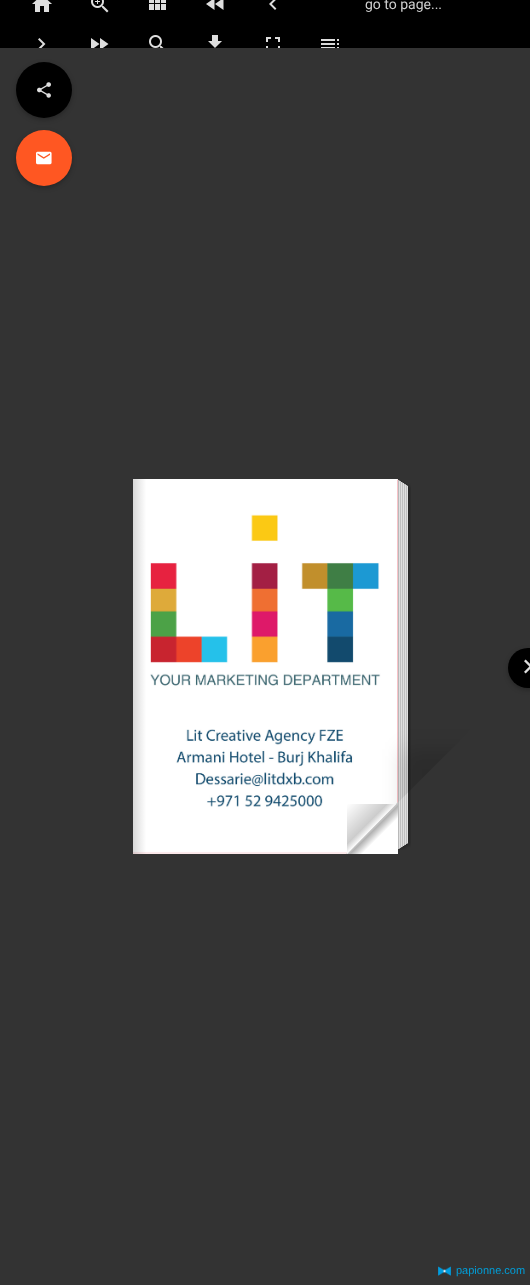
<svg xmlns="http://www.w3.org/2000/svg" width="530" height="1285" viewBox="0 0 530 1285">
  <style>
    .t1 { font: 14px Roboto; fill: #d0d0d0; }
    .t2 { font: 11px Liberation Sans; fill: #009fda; }
  </style>
  <defs>
    <clipPath id="clip1"><rect x="0" y="0" width="530" height="48"/></clipPath>
    <linearGradient id="g1" gradientUnits="userSpaceOnUse" x1="398" y1="667" x2="133" y2="667"><stop offset="0.95" stop-color="#fff"/><stop offset="1" stop-color="#d9d9d9"/></linearGradient>
    <linearGradient id="g2" gradientUnits="userSpaceOnUse" x1="398" y1="854" x2="368" y2="824"><stop offset="0.6" stop-color="#000" stop-opacity="0"/><stop offset="0.8" stop-color="#000" stop-opacity="0.3"/><stop offset="1" stop-color="#000" stop-opacity="0"/></linearGradient>
    <linearGradient id="g3" gradientUnits="userSpaceOnUse" x1="398" y1="666" x2="133" y2="666"><stop offset="0.95" stop-color="#000" stop-opacity="0"/><stop offset="1" stop-color="#000" stop-opacity="0.15"/></linearGradient>
    <clipPath id="clip2"><path d="M-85 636.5L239.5 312L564 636.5L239.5 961Z"/></clipPath>
    <linearGradient id="g4" gradientUnits="userSpaceOnUse" x1="347" y1="804" x2="372" y2="829"><stop offset="0" stop-color="#000" stop-opacity="0"/><stop offset="0.8" stop-color="#000" stop-opacity="0.2"/><stop offset="1" stop-color="#fff" stop-opacity="0.2"/></linearGradient>
  </defs>
  <rect width="100%" height="100%" fill="#333"/>
  <rect x="0" y="0" width="530" height="48" fill="#000"/>
  <image x="32" y="0" width="20" height="12" href="images/1.png"/>
  <image x="91" y="0" width="18" height="13" href="images/2.png"/>
  <image x="149" y="0" width="17" height="10" href="images/3.png"/>
  <path d="M214.5 10L206 4L214.5-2ZM215 4L223.5-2V10Z" fill="#dedede"/>
  <image x="269" y="0" width="8" height="10" href="images/4.png"/>
  <text x="365" y="9" class="t1">go to page...</text>
  <image x="38" y="38" width="8" height="10" href="images/5.png"/>
  <g clip-path="url(#clip1)">
    <path d="M91 50V38L99.5 44ZM100 38L108.5 44L100 50Z" fill="#dedede"/>
  </g>
  <image x="149" y="35" width="15" height="13" href="images/6.png"/>
  <image x="208" y="35" width="14" height="13" href="images/7.png"/>
  <image x="266" y="37" width="14" height="11" href="images/8.png"/>
  <image x="321" y="39" width="18" height="9" href="images/9.png"/>
  <rect x="16" y="64" width="56" height="56" rx="28" fill="#00000042" filter="blur(2.5px)"/>
  <circle cx="44" cy="90" r="28" fill="#000"/>
  <image x="37" y="82" width="14" height="16" href="images/10.png"/>
  <rect x="16" y="132" width="56" height="56" rx="28" fill="#00000042" filter="blur(2.5px)"/>
  <circle cx="44" cy="158" r="28" fill="#ff5722"/>
  <image x="36" y="151" width="16" height="14" href="images/11.png"/>
  <rect x="346" y="802" width="52" height="52" fill="url(#g1)"/>
  <rect x="346" y="802" width="52" height="52" fill="url(#g2)"/>
  <image x="133" y="479" width="265" height="375" href="images/12.png"/>
  <path d="M133 479H398V802L346 854H133Z" fill="url(#g3)"/>
  <image x="398" y="480" width="13" height="370" href="images/13.png"/>
  <rect x="508" y="650" width="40" height="40" rx="20" fill="#00000042" filter="blur(2.5px)"/>
  <circle cx="528" cy="668" r="20" fill="#000"/>
  <image x="524" y="659" width="6" height="15" href="images/14.png"/>
  <g clip-path="url(#clip2)">
    <rect x="402" y="749" width="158" height="375" fill="#00000024" filter="blur(10px)"/>
  </g>
  <path d="M347 804H396L347 854Z" fill="#fff"/>
  <path d="M347 804H396L347 854Z" fill="url(#g4)"/>
  <image x="438" y="1266" width="13" height="10" href="images/15.png"/>
  <text x="456" y="1274" class="t2">papionne.com</text>
</svg>
